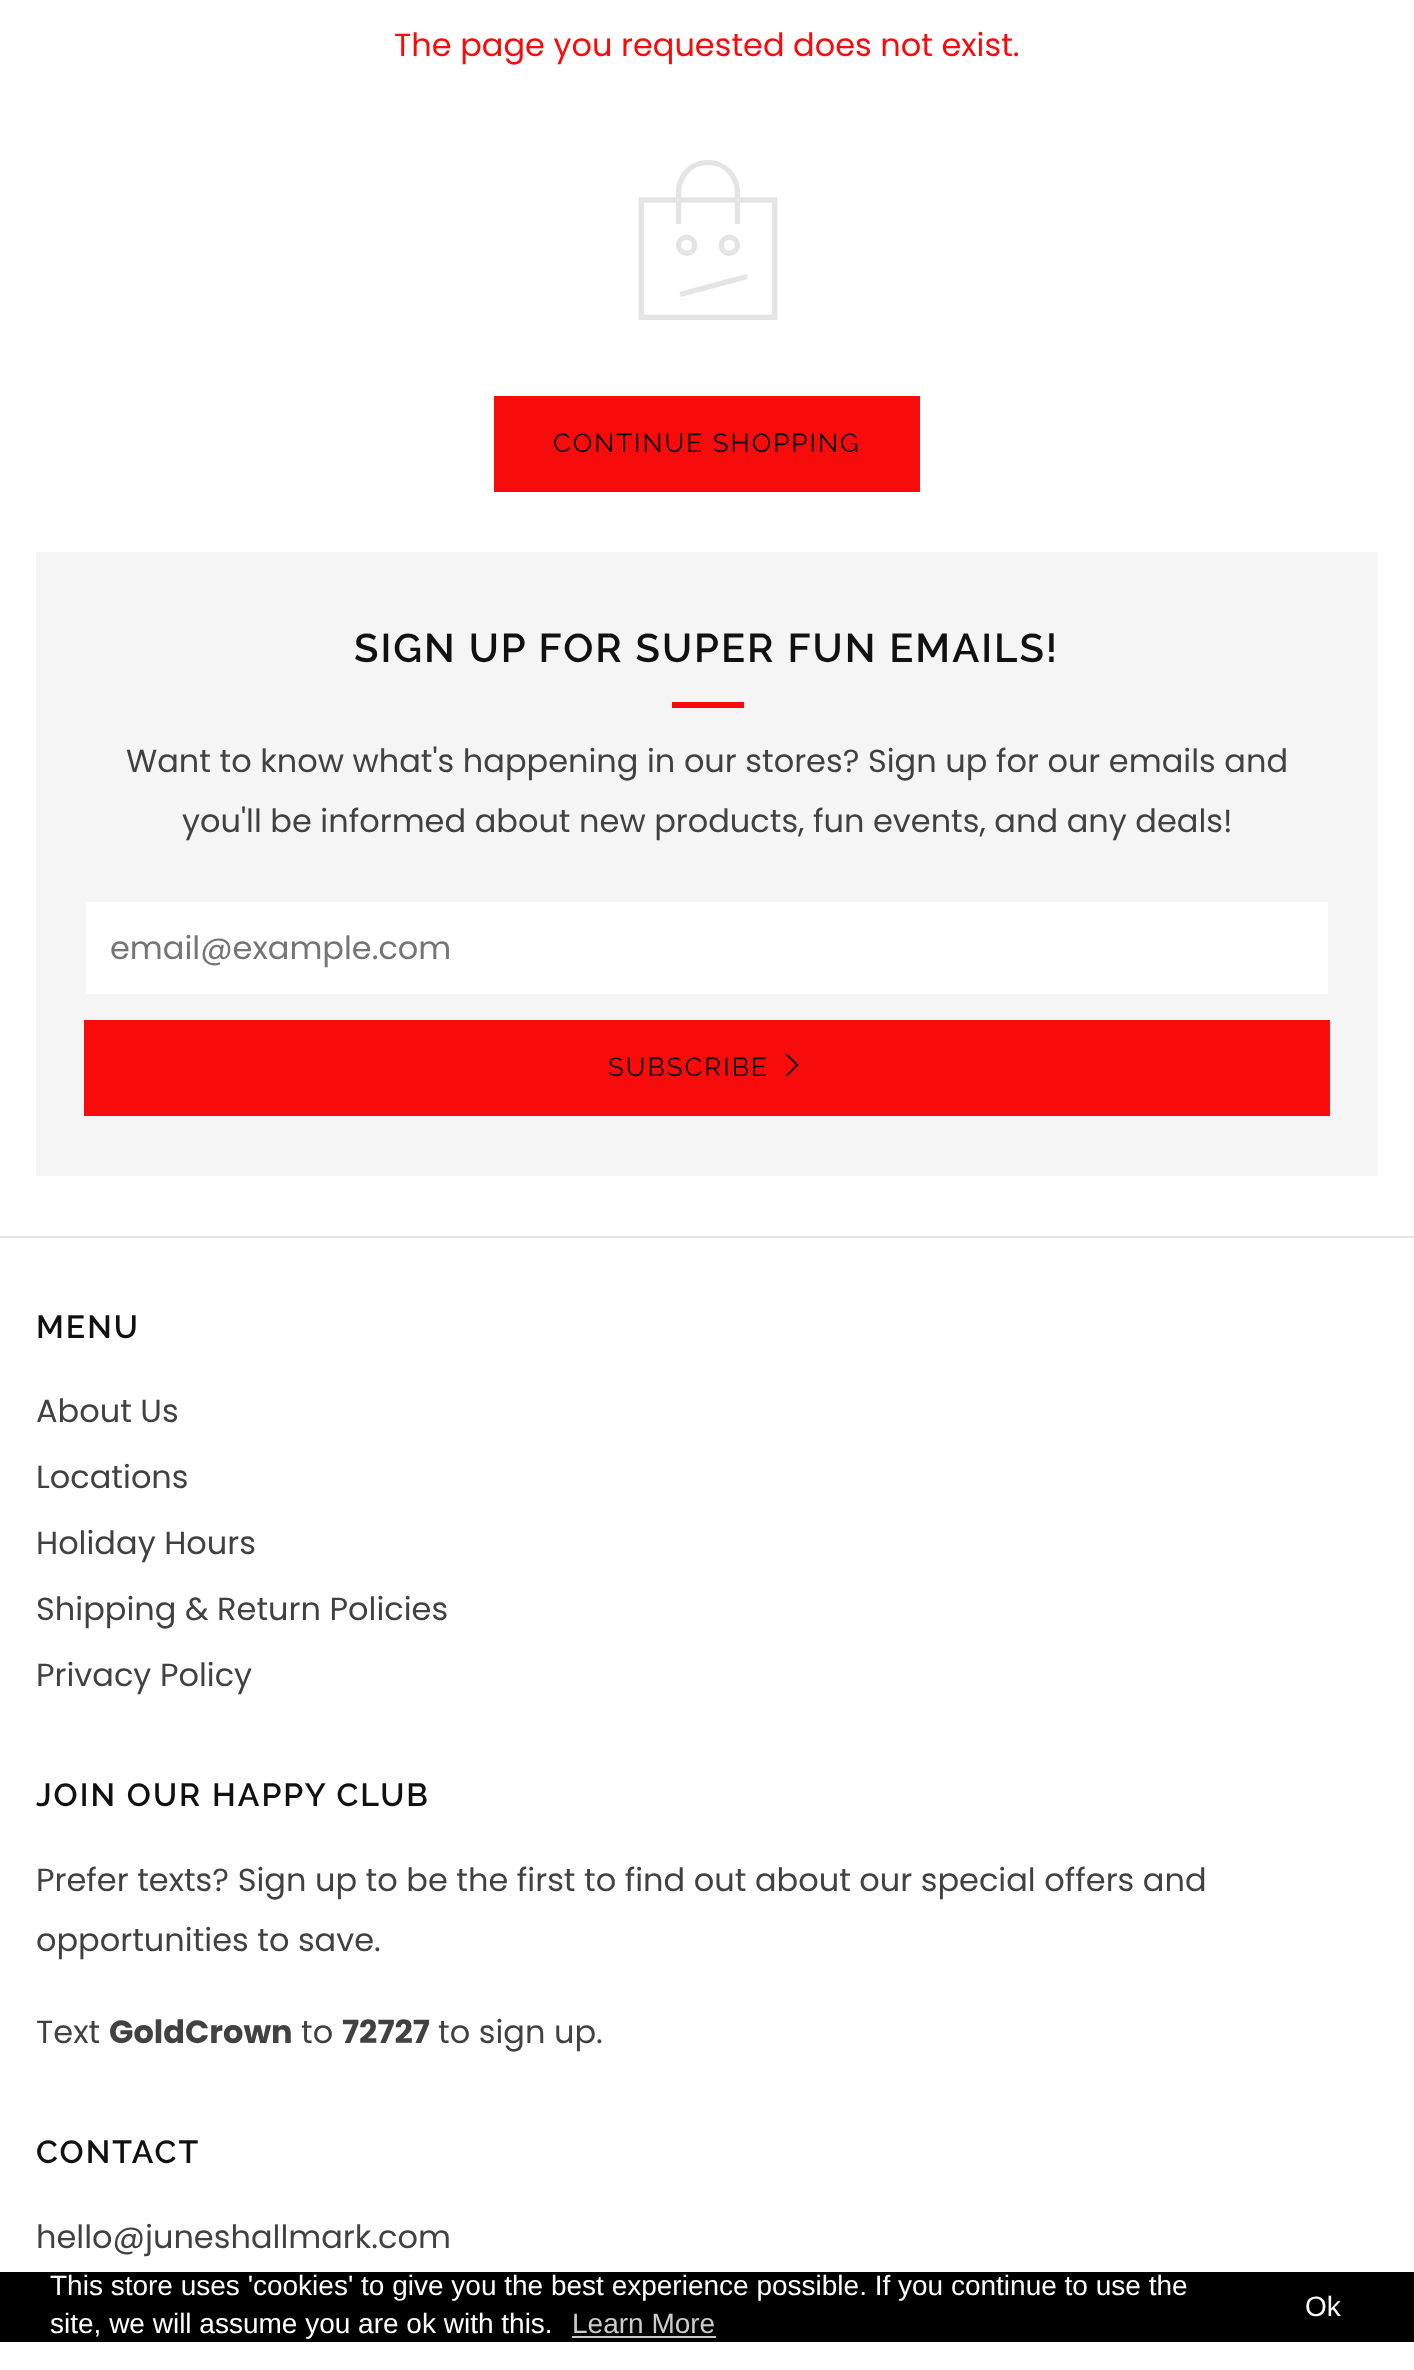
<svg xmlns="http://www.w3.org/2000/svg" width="1414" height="2370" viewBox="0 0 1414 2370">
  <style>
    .t1 { font: 32px Poppins; fill: #f80b0b; }
    .t2 { font: 26px Raleway; letter-spacing: 2px; fill: #000; }
    .t3 { font: 600 40px Raleway; letter-spacing: 2px; fill: #111; }
    .t4 { font: 32px Poppins; fill: #414141; }
    .t5 { font: 32px Poppins; fill: #757575; }
    .t6 { font: 600 32px Raleway; letter-spacing: 2px; fill: #111; }
    .t7 { font: bold 32px Poppins; fill: #414141; }
    .t8 { font: 28px Liberation Sans; fill: #fff; }
    .t9 { font: 28px Liberation Sans; fill: #ccc; }
  </style>
  <rect width="100%" height="100%" fill="#fff"/>
  <text x="394" y="56" class="t1">The page you requested does not exist.</text>
  <image x="638" y="160" width="140" height="160" href="images/1.png"/>
  <rect x="494" y="396" width="426" height="96" fill="#f80b0b"/>
  <text x="553" y="452" class="t2">CONTINUE SHOPPING</text>
  <rect x="36" y="552" width="1342" height="624" fill="#f5f5f5"/>
  <text x="354" y="662" class="t3">SIGN UP FOR SUPER FUN EMAILS!</text>
  <rect x="672" y="702" width="72" height="6" fill="#f80b0b"/>
  <text x="126" y="772" class="t4">Want to know what's happening in our stores? Sign up for our emails and</text>
  <text x="182" y="832" class="t4">you'll be informed about new products, fun events, and any deals!</text>
  <rect x="86" y="902" width="1242" height="92" fill="#fff"/>
  <text x="110" y="959" class="t5">email@example.com</text>
  <rect x="84" y="1020" width="1246" height="96" fill="#f80b0b"/>
  <text x="608" y="1076" class="t2">SUBSCRIBE</text>
  <path d="M785.5 1075.5L787 1076.5L798.5 1065L787 1053.5L785.5 1054.5L796 1065Z" fill="#000"/>
  <rect x="0" y="1236" width="1414" height="2" fill="#e4e4e4"/>
  <text x="36" y="1338" class="t6">MENU</text>
  <text x="36" y="1422" class="t4">About Us</text>
  <text x="36" y="1488" class="t4">Locations</text>
  <text x="36" y="1554" class="t4">Holiday Hours</text>
  <text x="36" y="1620" class="t4">Shipping &amp; Return Policies</text>
  <text x="36" y="1686" class="t4">Privacy Policy</text>
  <text x="36" y="1806" class="t6">JOIN OUR HAPPY CLUB</text>
  <text x="36" y="1891" class="t4">Prefer texts? Sign up to be the first to find out about our special offers and</text>
  <text x="36" y="1951" class="t4">opportunities to save.</text>
  <text x="36" y="2043" class="t4">Text</text>
  <text x="109" y="2043" class="t7">GoldCrown</text>
  <text x="301" y="2043" class="t4">to</text>
  <text x="342" y="2043" class="t7">72727</text>
  <text x="438" y="2043" class="t4">to sign up.</text>
  <text x="36" y="2163" class="t6">CONTACT</text>
  <text x="36" y="2248" class="t4">hello@juneshallmark.com</text>
  <rect x="0" y="2272" width="1414" height="70" fill="#000"/>
  <text x="50" y="2295" class="t8">This store uses 'cookies' to give you the best experience possible. If you continue to use the</text>
  <text x="50" y="2333" class="t8">site, we will assume you are ok with this.</text>
  <text x="572" y="2333" class="t9">Learn More</text>
  <rect x="572" y="2336" width="144" height="2" fill="#ccc"/>
  <text x="1305" y="2316" class="t8">Ok</text>
</svg>
